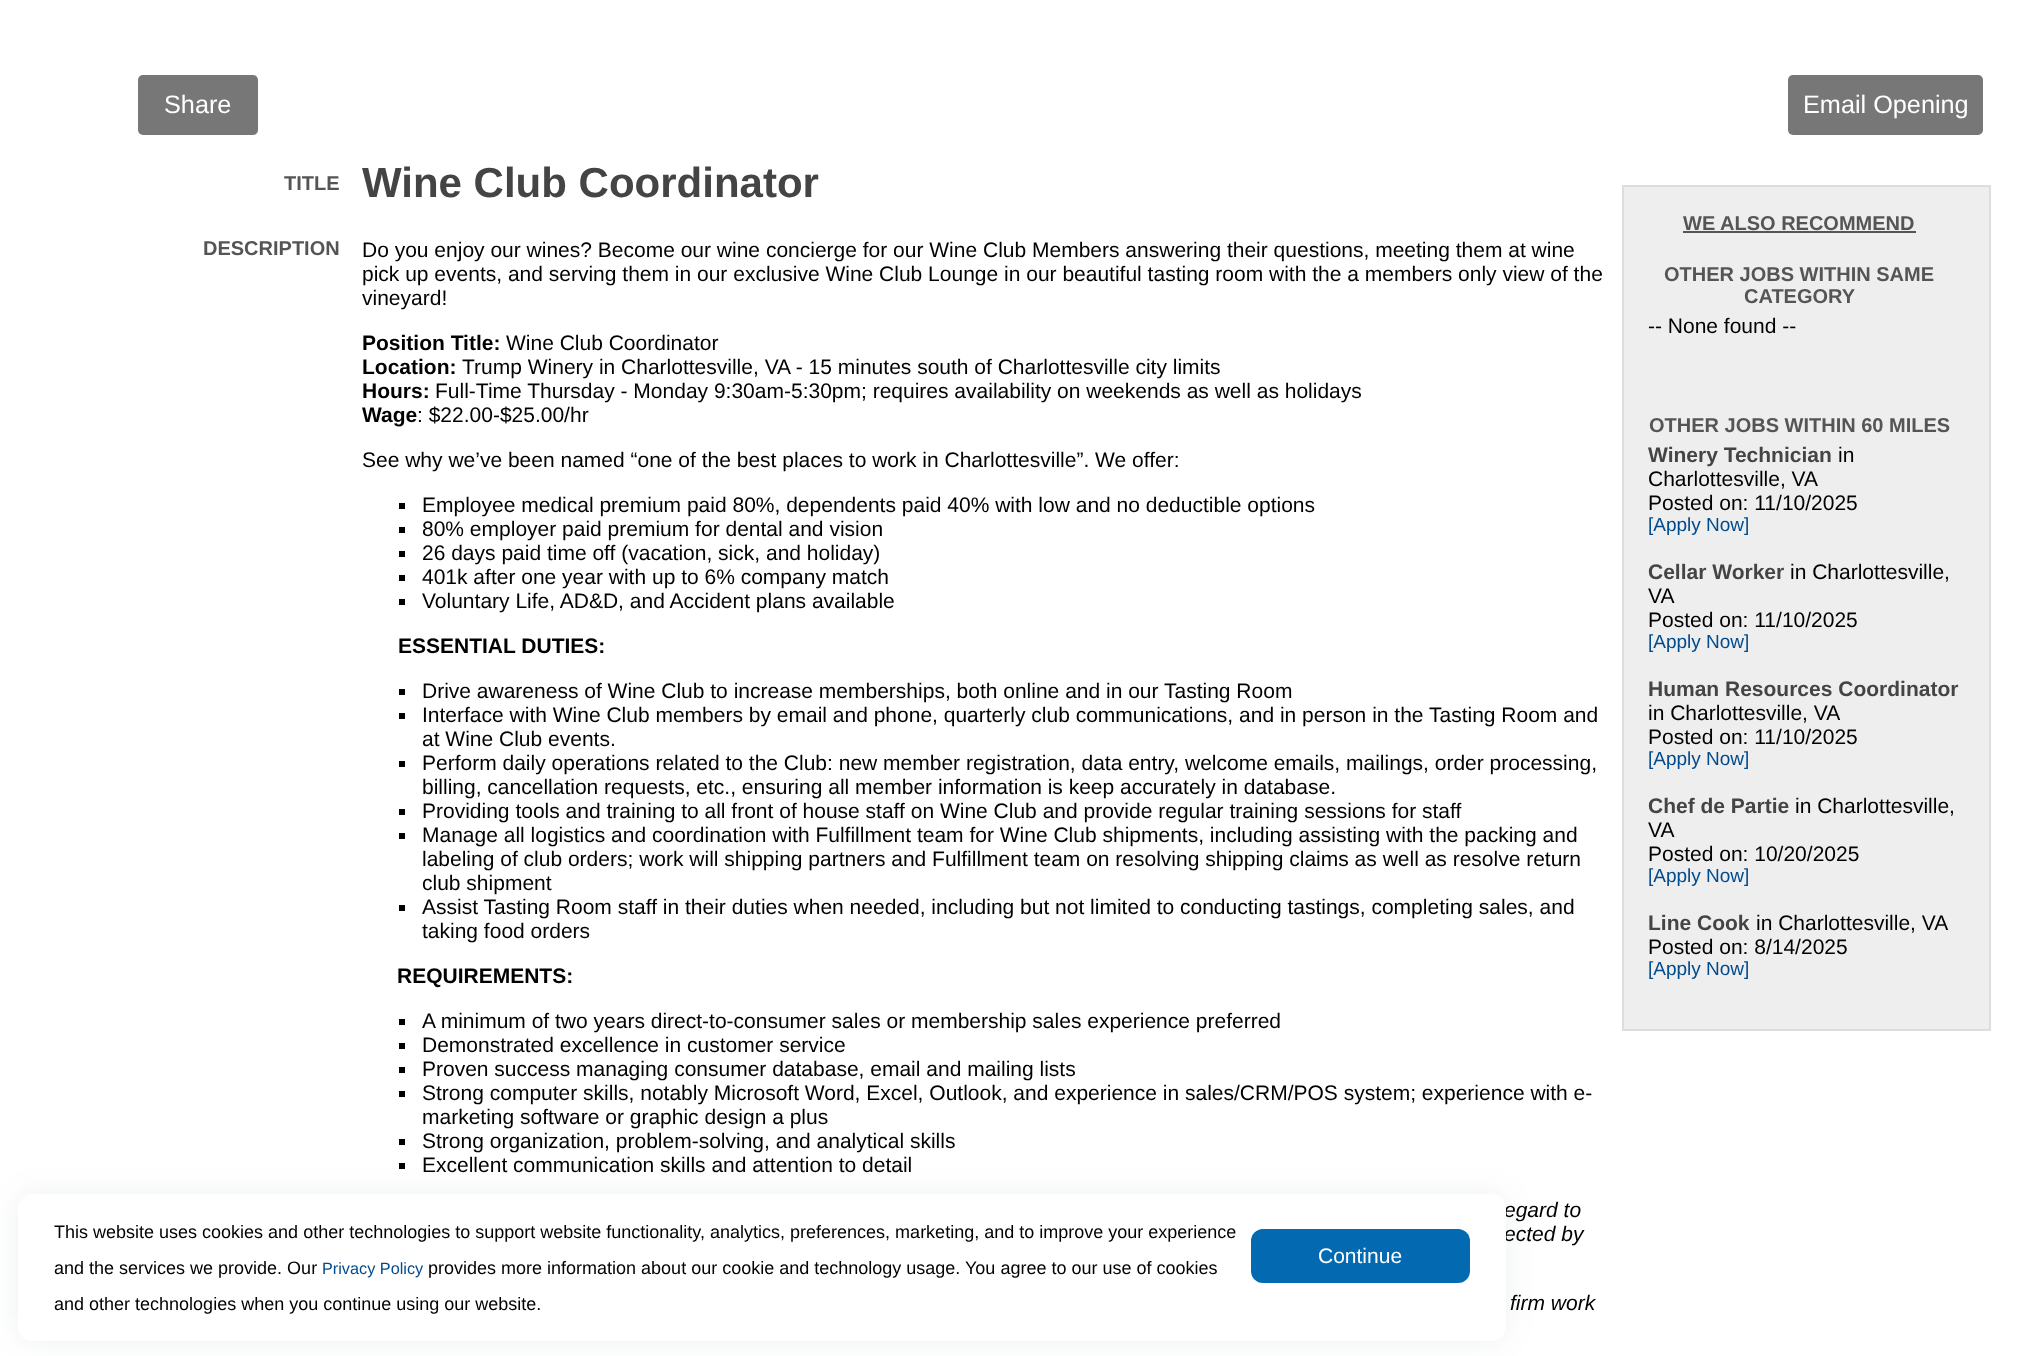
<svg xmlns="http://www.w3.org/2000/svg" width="2022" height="1356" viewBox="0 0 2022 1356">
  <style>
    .t1 { font: 25.25px Liberation Sans; fill: #fff; }
    .t2 { font: bold 20px Liberation Sans; fill: #555; }
    .t3 { font: bold 42px Liberation Sans; fill: #444; }
    .t4 { font: 21px Liberation Sans; fill: #000; }
    .t5 { font: bold 21px Liberation Sans; fill: #000; }
    .t6 { font: italic 21px Liberation Sans; fill: #000; }
    .t7 { font: bold 21px Liberation Sans; fill: #444; }
    .t8 { font: 19px Liberation Sans; fill: #004b8d; }
    .t9 { font: 18px Liberation Sans; fill: #000; }
    .t10 { font: 16.25px Liberation Sans; fill: #004b8d; }
    .t11 { font: 21px Liberation Sans; fill: #fff; }
  </style>
  <rect width="100%" height="100%" fill="#fff"/>
  <rect x="138" y="75" width="120" height="60" rx="5" fill="#777"/>
  <text x="164" y="113" class="t1">Share</text>
  <rect x="1788" y="75" width="195" height="60" rx="5" fill="#777"/>
  <text x="1803" y="113" class="t1">Email Opening</text>
  <text x="284" y="190" class="t2">TITLE</text>
  <text x="362" y="197" class="t3">Wine Club Coordinator</text>
  <text x="203" y="255" class="t2">DESCRIPTION</text>
  <text x="362" y="257" class="t4">Do you enjoy our wines? Become our wine concierge for our Wine Club Members answering their questions, meeting them at wine</text>
  <text x="362" y="281" class="t4">pick up events, and serving them in our exclusive Wine Club Lounge in our beautiful tasting room with the a members only view of the</text>
  <text x="362" y="305" class="t4">vineyard!</text>
  <text x="362" y="350" class="t5">Position Title:</text>
  <text x="506" y="350" class="t4">Wine Club Coordinator</text>
  <text x="362" y="374" class="t5">Location:</text>
  <text x="462" y="374" class="t4">Trump Winery in Charlottesville, VA - 15 minutes south of Charlottesville city limits</text>
  <text x="362" y="398" class="t5">Hours:</text>
  <text x="435" y="398" class="t4">Full-Time Thursday - Monday 9:30am-5:30pm; requires availability on weekends as well as holidays</text>
  <text x="362" y="422" class="t5">Wage</text>
  <text x="417" y="422" class="t4">: $22.00-$25.00/hr</text>
  <text x="362" y="467" class="t4">See why we’ve been named “one of the best places to work in Charlottesville”. We offer:</text>
  <rect x="399" y="503" width="6" height="6" fill="#000"/>
  <text x="422" y="512" class="t4">Employee medical premium paid 80%, dependents paid 40% with low and no deductible options</text>
  <rect x="399" y="527" width="6" height="6" fill="#000"/>
  <text x="422" y="536" class="t4">80% employer paid premium for dental and vision</text>
  <rect x="399" y="551" width="6" height="6" fill="#000"/>
  <text x="422" y="560" class="t4">26 days paid time off (vacation, sick, and holiday)</text>
  <rect x="399" y="575" width="6" height="6" fill="#000"/>
  <text x="422" y="584" class="t4">401k after one year with up to 6% company match</text>
  <rect x="399" y="599" width="6" height="6" fill="#000"/>
  <text x="422" y="608" class="t4">Voluntary Life, AD&amp;D, and Accident plans available</text>
  <text x="398" y="653" class="t5">ESSENTIAL DUTIES:</text>
  <rect x="399" y="689" width="6" height="6" fill="#000"/>
  <text x="422" y="698" class="t4">Drive awareness of Wine Club to increase memberships, both online and in our Tasting Room</text>
  <rect x="399" y="713" width="6" height="6" fill="#000"/>
  <text x="422" y="722" class="t4">Interface with Wine Club members by email and phone, quarterly club communications, and in person in the Tasting Room and</text>
  <text x="422" y="746" class="t4">at Wine Club events.</text>
  <rect x="399" y="761" width="6" height="6" fill="#000"/>
  <text x="422" y="770" class="t4">Perform daily operations related to the Club: new member registration, data entry, welcome emails, mailings, order processing,</text>
  <text x="422" y="794" class="t4">billing, cancellation requests, etc., ensuring all member information is keep accurately in database.</text>
  <rect x="399" y="809" width="6" height="6" fill="#000"/>
  <text x="422" y="818" class="t4">Providing tools and training to all front of house staff on Wine Club and provide regular training sessions for staff</text>
  <rect x="399" y="833" width="6" height="6" fill="#000"/>
  <text x="422" y="842" class="t4">Manage all logistics and coordination with Fulfillment team for Wine Club shipments, including assisting with the packing and</text>
  <text x="422" y="866" class="t4">labeling of club orders; work will shipping partners and Fulfillment team on resolving shipping claims as well as resolve return</text>
  <text x="422" y="890" class="t4">club shipment</text>
  <rect x="399" y="905" width="6" height="6" fill="#000"/>
  <text x="422" y="914" class="t4">Assist Tasting Room staff in their duties when needed, including but not limited to conducting tastings, completing sales, and</text>
  <text x="422" y="938" class="t4">taking food orders</text>
  <text x="397" y="983" class="t5">REQUIREMENTS:</text>
  <rect x="399" y="1019" width="6" height="6" fill="#000"/>
  <text x="422" y="1028" class="t4">A minimum of two years direct-to-consumer sales or membership sales experience preferred</text>
  <rect x="399" y="1043" width="6" height="6" fill="#000"/>
  <text x="422" y="1052" class="t4">Demonstrated excellence in customer service</text>
  <rect x="399" y="1067" width="6" height="6" fill="#000"/>
  <text x="422" y="1076" class="t4">Proven success managing consumer database, email and mailing lists</text>
  <rect x="399" y="1091" width="6" height="6" fill="#000"/>
  <text x="422" y="1100" class="t4">Strong computer skills, notably Microsoft Word, Excel, Outlook, and experience in sales/CRM/POS system; experience with e-</text>
  <text x="422" y="1124" class="t4">marketing software or graphic design a plus</text>
  <rect x="399" y="1139" width="6" height="6" fill="#000"/>
  <text x="422" y="1148" class="t4">Strong organization, problem-solving, and analytical skills</text>
  <rect x="399" y="1163" width="6" height="6" fill="#000"/>
  <text x="422" y="1172" class="t4">Excellent communication skills and attention to detail</text>
  <text x="1504" y="1217" class="t6">egard to</text>
  <text x="1504" y="1241" class="t6">ected by</text>
  <text x="1510" y="1310" class="t6">firm work</text>
  <rect x="1623" y="186" width="367" height="844" fill="#eee" stroke="#ddd" stroke-width="2"/>
  <text x="1683" y="230" class="t2">WE ALSO RECOMMEND</text>
  <rect x="1683" y="231" width="233" height="2" fill="#555"/>
  <text x="1664" y="281" class="t2">OTHER JOBS WITHIN SAME</text>
  <text x="1744" y="303" class="t2">CATEGORY</text>
  <text x="1648" y="333" class="t4">-- None found --</text>
  <text x="1649" y="432" class="t2">OTHER JOBS WITHIN 60 MILES</text>
  <text x="1648" y="462" class="t7">Winery Technician</text>
  <text x="1838" y="462" class="t4">in</text>
  <text x="1648" y="486" class="t4">Charlottesville, VA</text>
  <text x="1648" y="510" class="t4">Posted on: 11/10/2025</text>
  <text x="1648" y="531" class="t8">[Apply Now]</text>
  <text x="1648" y="579" class="t7">Cellar Worker</text>
  <text x="1790" y="579" class="t4">in Charlottesville,</text>
  <text x="1648" y="603" class="t4">VA</text>
  <text x="1648" y="627" class="t4">Posted on: 11/10/2025</text>
  <text x="1648" y="648" class="t8">[Apply Now]</text>
  <text x="1648" y="696" class="t7">Human Resources Coordinator</text>
  <text x="1648" y="720" class="t4">in Charlottesville, VA</text>
  <text x="1648" y="744" class="t4">Posted on: 11/10/2025</text>
  <text x="1648" y="765" class="t8">[Apply Now]</text>
  <text x="1648" y="813" class="t7">Chef de Partie</text>
  <text x="1795" y="813" class="t4">in Charlottesville,</text>
  <text x="1648" y="837" class="t4">VA</text>
  <text x="1648" y="861" class="t4">Posted on: 10/20/2025</text>
  <text x="1648" y="882" class="t8">[Apply Now]</text>
  <text x="1648" y="930" class="t7">Line Cook</text>
  <text x="1756" y="930" class="t4">in Charlottesville, VA</text>
  <text x="1648" y="954" class="t4">Posted on: 8/14/2025</text>
  <text x="1648" y="975" class="t8">[Apply Now]</text>
  <rect x="18" y="1194" width="1488" height="147" rx="15" fill="#273b4a14" filter="blur(15px)"/>
  <rect x="18" y="1194" width="1488" height="147" rx="15" fill="#fff"/>
  <text x="54" y="1238" class="t9">This website uses cookies and other technologies to support website functionality, analytics, preferences, marketing, and to improve your experience</text>
  <text x="54" y="1274" class="t9">and the services we provide. Our</text>
  <text x="322" y="1274" class="t10">Privacy Policy</text>
  <text x="428" y="1274" class="t9">provides more information about our cookie and technology usage.</text>
  <text x="965" y="1274" class="t9">You agree to our use of cookies</text>
  <text x="54" y="1310" class="t9">and other technologies when you continue using our website.</text>
  <rect x="1251" y="1229" width="219" height="54" rx="12" fill="#0369b1"/>
  <text x="1318" y="1263" class="t11">Continue</text>
</svg>
